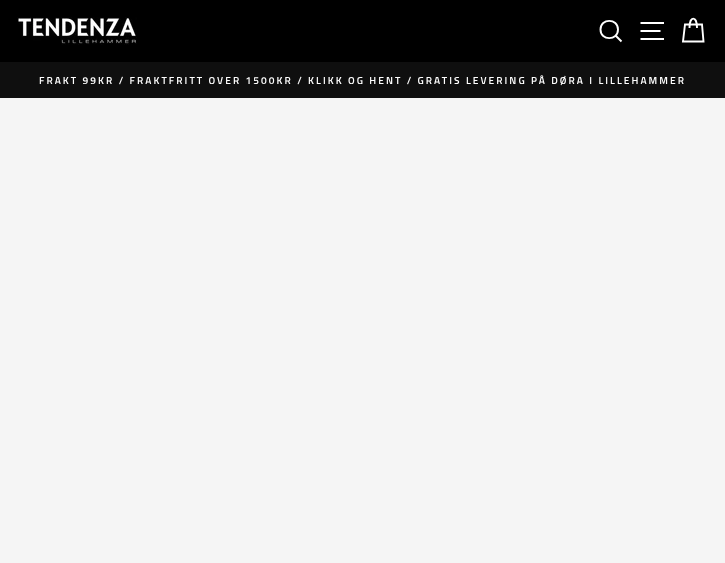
<svg xmlns="http://www.w3.org/2000/svg" width="725" height="563" viewBox="0 0 725 563">
  <style>
    .t1 { font: 600 10.2px Titillium Web; letter-spacing: 2.05px; fill: #fff; }
  </style>
  <rect width="100%" height="100%" fill="#f5f5f5"/>
  <rect x="0" y="0" width="725" height="62" fill="#000"/>
  <image x="17" y="17" width="120" height="28" href="images/1.png"/>
  <path d="M618 29.5C618 41 600.5 41 600.5 29.5C600.5 18 618 18 618 29.5ZM621.5 41.5L615.5 35.5" fill="none" stroke="#fff" stroke-width="1.9"/>
  <path d="M640.5 23H664M640.5 31H660.5M640.5 39H664M689.5 28C689.5 15.5 697 15.5 697 28" fill="none" stroke="#fff" stroke-width="1.9"/>
  <path d="M685 24.5H702L703.5 41.5H683Z" fill="none" stroke="#fff" stroke-width="1.9"/>
  <rect x="0" y="62" width="725" height="36" fill="#0f0f0f"/>
  <text x="39" y="84" class="t1">FRAKT 99KR / FRAKTFRITT OVER 1500KR / KLIKK OG HENT / GRATIS LEVERING PÅ DØRA I LILLEHAMMER</text>
</svg>
